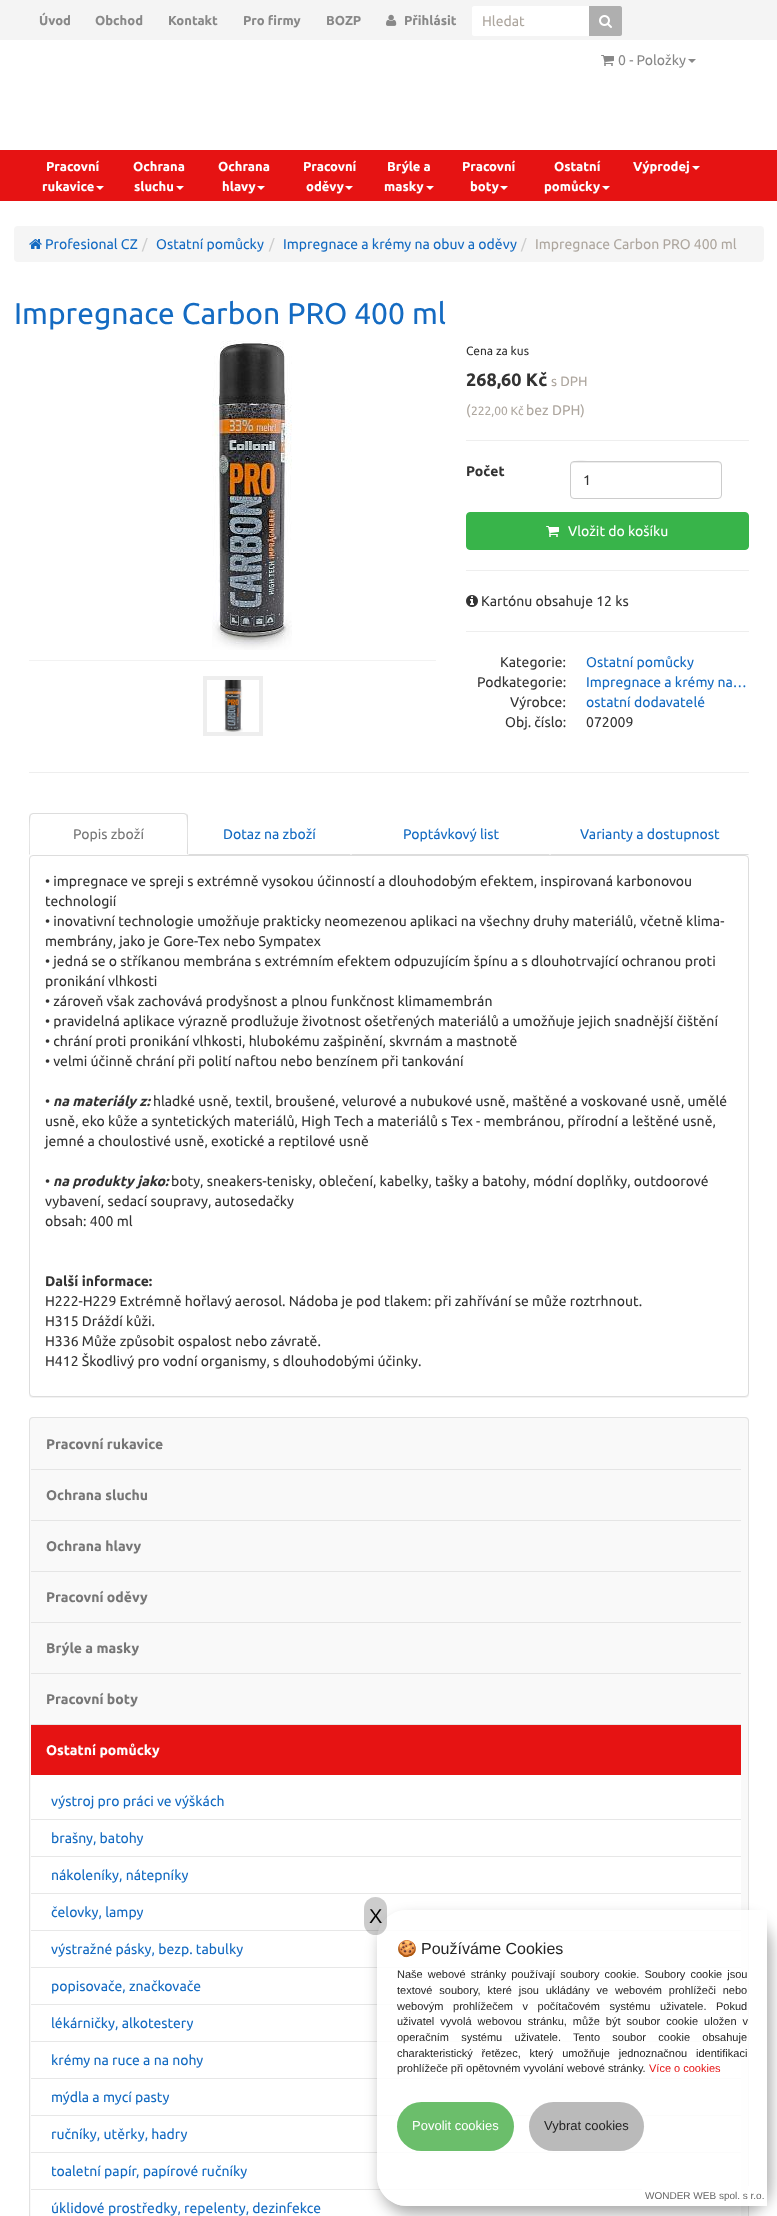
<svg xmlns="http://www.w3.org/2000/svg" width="777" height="2216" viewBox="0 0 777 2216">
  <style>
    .t1 { font: bold 13px Ubuntu; fill: #888; }
    .t2 { font: 14px Ubuntu; fill: #aea79f; }
    .t3 { font: 14px Ubuntu; fill: #888; }
    .t4 { font: bold 13px Ubuntu; fill: #fff; }
    .t5 { font: 14px Ubuntu; fill: #146bc2; }
    .t6 { font: 14px Ubuntu; fill: #ccc; }
    .t7 { font: 30px Ubuntu; fill: #146bc2; }
    .t8 { font: 12px Ubuntu; fill: #333; }
    .t9 { font: bold 18px Ubuntu; fill: #333; }
    .t10 { font: 13.5px Ubuntu; fill: #aea79f; }
    .t11 { font: 12px Ubuntu; fill: #aea79f; }
    .t12 { font: bold 14px Ubuntu; fill: #333; }
    .t13 { font: 14px Ubuntu; fill: #333; }
    .t14 { font: 14px Ubuntu; fill: #fff; }
    .t15 { font: 14px Ubuntu; fill: #777; }
    .t16 { font: italic bold 14px Ubuntu; fill: #333; }
    .t17 { font: bold 14px Ubuntu; fill: #777; }
    .t18 { font: bold 14px Ubuntu; fill: #fff; }
    .t19 { font: 20px Liberation Sans; fill: #000; }
    .t20 { font: 16px Noto Color Emoji; fill: #242424; }
    .t21 { font: 16px Liberation Sans; fill: #242424; }
    .t22 { font: 11px Liberation Sans; fill: #242424; }
    .t23 { font: 11px Liberation Sans; fill: #e61313; }
    .t24 { font: 13px Liberation Sans; fill: #fff; }
    .t25 { font: 13px Liberation Sans; fill: #242424; }
    .t26 { font: 10px Liberation Sans; fill: #666; }
  </style>
  <defs>
    <clipPath id="clip1"><path d="M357 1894H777V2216H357ZM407 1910H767V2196C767 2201.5 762.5 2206 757 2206H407C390.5 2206 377 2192.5 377 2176V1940C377 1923.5 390.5 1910 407 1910Z" clip-rule="evenodd"/></clipPath>
  </defs>
  <rect width="100%" height="100%" fill="#fff"/>
  <rect x="0" y="0" width="777" height="40" fill="#f4f4f4"/>
  <text x="39" y="25" class="t1">Úvod</text>
  <text x="95" y="25" class="t1">Obchod</text>
  <text x="168" y="25" class="t1">Kontakt</text>
  <text x="243" y="25" class="t1">Pro firmy</text>
  <text x="326" y="25" class="t1">BOZP</text>
  <image x="386" y="14" width="11" height="12" href="images/1.png"/>
  <text x="404" y="25" class="t1">Přihlásit</text>
  <path d="M474 6H590V36H474C473 36 472 35 472 34V8C472 7 473 6 474 6Z" fill="#fff"/>
  <text x="482" y="26" class="t2">Hledat</text>
  <path d="M589 6H620C621 6 622 7 622 8V34C622 35 621 36 620 36H589Z" fill="#afafaf"/>
  <image x="599" y="15" width="13" height="13" href="images/2.png"/>
  <image x="601" y="55" width="13" height="11" href="images/3.png"/>
  <text x="618" y="65" class="t3">0 - Položky</text>
  <path d="M688 59H696L692 63Z" fill="#888"/>
  <rect x="0" y="150" width="777" height="51" fill="#e61313"/>
  <text x="46" y="171" class="t4">Pracovní</text>
  <text x="42" y="191" class="t4">rukavice</text>
  <path d="M96 186H104L100 190Z" fill="#fff"/>
  <text x="133" y="171" class="t4">Ochrana</text>
  <text x="134" y="191" class="t4">sluchu</text>
  <path d="M176 186H184L180 190Z" fill="#fff"/>
  <text x="218" y="171" class="t4">Ochrana</text>
  <text x="222" y="191" class="t4">hlavy</text>
  <path d="M257 186H265L261 190Z" fill="#fff"/>
  <text x="303" y="171" class="t4">Pracovní</text>
  <text x="306" y="191" class="t4">oděvy</text>
  <path d="M345 186H353L349 190Z" fill="#fff"/>
  <text x="387" y="171" class="t4">Brýle a</text>
  <text x="384" y="191" class="t4">masky</text>
  <path d="M426 186H434L430 190Z" fill="#fff"/>
  <text x="462" y="171" class="t4">Pracovní</text>
  <text x="470" y="191" class="t4">boty</text>
  <path d="M500 186H508L504 190Z" fill="#fff"/>
  <text x="554" y="171" class="t4">Ostatní</text>
  <text x="544" y="191" class="t4">pomůcky</text>
  <path d="M602 186H610L606 190Z" fill="#fff"/>
  <text x="633" y="171" class="t4">Výprodej</text>
  <path d="M692 166H700L696 170Z" fill="#fff"/>
  <rect x="14" y="226" width="750" height="36" rx="4" fill="#f5f5f5"/>
  <image x="29" y="239" width="13" height="10" href="images/4.png"/>
  <text x="45" y="249" class="t5">Profesional CZ</text>
  <text x="142" y="249" class="t6">/</text>
  <text x="156" y="249" class="t5">Ostatní pomůcky</text>
  <text x="269" y="249" class="t6">/</text>
  <text x="283" y="249" class="t5">Impregnace a krémy na obuv a oděvy</text>
  <text x="521" y="249" class="t6">/</text>
  <text x="535" y="249" class="t2">Impregnace Carbon PRO 400 ml</text>
  <text x="14" y="324" class="t7">Impregnace Carbon PRO 400 ml</text>
  <image x="212" y="340" width="80" height="310" href="images/5.png"/>
  <rect x="29" y="660" width="407" height="1" fill="#f2f2f2"/>
  <rect x="205" y="678" width="56" height="56" fill="none" stroke="#eee" stroke-width="4"/>
  <image x="223" y="680" width="20" height="52" href="images/6.png"/>
  <text x="466" y="355" class="t8">Cena za kus</text>
  <text x="466" y="386" class="t9">268,60 Kč</text>
  <text x="551" y="386" class="t10">s DPH</text>
  <text x="466" y="415" class="t2">(</text>
  <text x="471" y="415" class="t11">222,00 Kč</text>
  <text x="526" y="415" class="t2">bez DPH)</text>
  <rect x="466" y="440" width="283" height="1" fill="#eee"/>
  <text x="466" y="476" class="t12">Počet</text>
  <path d="M574 463H718C720 463 721 464 721 466C721 464 721 463 719 462H598C590 462 571 457 571 466C571 464 572 463 574 463Z" fill="#ececec"/>
  <rect x="570.5" y="461.5" width="151" height="37" rx="3.5" fill="none" stroke="#ccc"/>
  <text x="583" y="485" class="t13">1</text>
  <rect x="466.5" y="512.5" width="282" height="37" rx="3.5" fill="#38b44a" stroke="#38b44a"/>
  <image x="546" y="526" width="13" height="11" href="images/7.png"/>
  <text x="568" y="536" class="t14">Vložit do košíku</text>
  <rect x="466" y="570" width="283" height="1" fill="#eee"/>
  <image x="466" y="595" width="12" height="12" href="images/8.png"/>
  <text x="481" y="606" class="t13">Kartónu obsahuje 12 ks</text>
  <rect x="466" y="631" width="283" height="1" fill="#eee"/>
  <text x="500" y="667" class="t13">Kategorie:</text>
  <text x="586" y="667" class="t5">Ostatní pomůcky</text>
  <text x="477" y="687" class="t13">Podkategorie:</text>
  <text x="586" y="687" class="t5">Impregnace a krémy na…</text>
  <text x="510" y="707" class="t13">Výrobce:</text>
  <text x="586" y="707" class="t5">ostatní dodavatelé</text>
  <text x="505" y="727" class="t13">Obj. číslo:</text>
  <text x="586" y="727" class="t13">072009</text>
  <rect x="29" y="772" width="720" height="1" fill="#eee"/>
  <path d="M33 813L30 814L31 815L33 814H184L186 815L187 814L184 813Z" fill="#ddd"/>
  <rect x="29" y="856" width="720" height="542" rx="4" fill="#0000000d" filter="blur(0.5px)"/>
  <path d="M188 855V817C188 816 188 815 187 814L186 815C188 817 187 849 187 854Z" fill="#ddd"/>
  <path d="M188 855L187 854H30L29 855Z" fill="#fff"/>
  <path d="M29 855L30 854C30 849 29 817 31 815L30 814L29 817Z" fill="#ddd"/>
  <text x="73" y="839" class="t15">Popis zboží</text>
  <path d="M351 855L350 854H189L188 855Z" fill="#ddd"/>
  <text x="223" y="839" class="t5">Dotaz na zboží</text>
  <path d="M550 855L549 854H352L351 855Z" fill="#ddd"/>
  <text x="403" y="839" class="t5">Poptávkový list</text>
  <path d="M749 855L748 854H551L550 855Z" fill="#ddd"/>
  <text x="580" y="839" class="t5">Varianty a dostupnost</text>
  <rect x="29.5" y="855.5" width="719" height="541" rx="3.5" fill="#fff" stroke="#ddd"/>
  <text x="45" y="886" class="t13">• impregnace ve spreji s extrémně vysokou účinností a dlouhodobým efektem, inspirovaná karbonovou</text>
  <text x="45" y="906" class="t13">technologií</text>
  <text x="45" y="926" class="t13">• inovativní technologie umožňuje prakticky neomezenou aplikaci na všechny druhy materiálů, včetně klima-</text>
  <text x="45" y="946" class="t13">membrány, jako je Gore-Tex nebo Sympatex</text>
  <text x="45" y="966" class="t13">• jedná se o stříkanou membrána s extrémním efektem odpuzujícím špínu a s dlouhotrvající ochranou proti</text>
  <text x="45" y="986" class="t13">pronikání vlhkosti</text>
  <text x="45" y="1006" class="t13">• zároveň však zachovává prodyšnost a plnou funkčnost klimamembrán</text>
  <text x="45" y="1026" class="t13">• pravidelná aplikace výrazně prodlužuje životnost ošetřených materiálů a umožňuje jejich snadnější čištění</text>
  <text x="45" y="1046" class="t13">• chrání proti pronikání vlhkosti, hlubokému zašpinění, skvrnám a mastnotě</text>
  <text x="45" y="1066" class="t13">• velmi účinně chrání při polití naftou nebo benzínem při tankování</text>
  <text x="45" y="1106" class="t13">•</text>
  <text x="53" y="1106" class="t16">na materiály z:</text>
  <text x="153" y="1106" class="t13">hladké usně, textil, broušené, velurové a nubukové usně, maštěné a voskované usně, umělé</text>
  <text x="45" y="1126" class="t13">usně, eko kůže a syntetických materiálů, High Tech a materiálů s Tex - membránou, přírodní a leštěné usně,</text>
  <text x="45" y="1146" class="t13">jemné a choulostivé usně, exotické a reptilové usně</text>
  <text x="45" y="1186" class="t13">•</text>
  <text x="53" y="1186" class="t16">na produkty jako:</text>
  <text x="171" y="1186" class="t13">boty, sneakers-tenisky, oblečení, kabelky, tašky a batohy, módní doplňky, outdoorové</text>
  <text x="45" y="1206" class="t13">vybavení, sedací soupravy, autosedačky</text>
  <text x="45" y="1226" class="t13">obsah: 400 ml</text>
  <text x="45" y="1286" class="t12">Další informace:</text>
  <text x="45" y="1306" class="t13">H222-H229 Extrémně hořlavý aerosol. Nádoba je pod tlakem: při zahřívání se může roztrhnout.</text>
  <text x="45" y="1326" class="t13">H315 Dráždí kůži.</text>
  <text x="45" y="1346" class="t13">H336 Může způsobit ospalost nebo závratě.</text>
  <text x="45" y="1366" class="t13">H412 Škodlivý pro vodní organismy, s dlouhodobými účinky.</text>
  <rect x="29.5" y="1417.5" width="719" height="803" rx="3.5" fill="none" stroke="#ddd"/>
  <rect x="29.5" y="1417.5" width="719" height="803" rx="3.5" fill="#f9f9f9" stroke="#e2e2e2"/>
  <rect x="31" y="1469" width="710" height="1" fill="#e5e5e5"/>
  <text x="46" y="1449" class="t17">Pracovní rukavice</text>
  <rect x="31" y="1520" width="710" height="1" fill="#e5e5e5"/>
  <text x="46" y="1500" class="t17">Ochrana sluchu</text>
  <rect x="31" y="1571" width="710" height="1" fill="#e5e5e5"/>
  <text x="46" y="1551" class="t17">Ochrana hlavy</text>
  <rect x="31" y="1622" width="710" height="1" fill="#e5e5e5"/>
  <text x="46" y="1602" class="t17">Pracovní oděvy</text>
  <rect x="31" y="1673" width="710" height="1" fill="#e5e5e5"/>
  <text x="46" y="1653" class="t17">Brýle a masky</text>
  <rect x="31" y="1724" width="710" height="1" fill="#e5e5e5"/>
  <text x="46" y="1704" class="t17">Pracovní boty</text>
  <rect x="31" y="1725" width="710" height="50" fill="#e61313"/>
  <text x="46" y="1755" class="t18">Ostatní pomůcky</text>
  <rect x="31" y="1775" width="710" height="441" fill="#fff"/>
  <rect x="31" y="1819" width="710" height="1" fill="#e7e7e7"/>
  <text x="51" y="1806" class="t5">výstroj pro práci ve výškách</text>
  <rect x="31" y="1856" width="710" height="1" fill="#e7e7e7"/>
  <text x="51" y="1843" class="t5">brašny, batohy</text>
  <rect x="31" y="1893" width="710" height="1" fill="#e7e7e7"/>
  <text x="51" y="1880" class="t5">nákoleníky, nátepníky</text>
  <rect x="31" y="1930" width="710" height="1" fill="#e7e7e7"/>
  <text x="51" y="1917" class="t5">čelovky, lampy</text>
  <rect x="31" y="1967" width="710" height="1" fill="#e7e7e7"/>
  <text x="51" y="1954" class="t5">výstražné pásky, bezp. tabulky</text>
  <rect x="31" y="2004" width="710" height="1" fill="#e7e7e7"/>
  <text x="51" y="1991" class="t5">popisovače, značkovače</text>
  <rect x="31" y="2041" width="710" height="1" fill="#e7e7e7"/>
  <text x="51" y="2028" class="t5">lékárničky, alkotestery</text>
  <rect x="31" y="2078" width="710" height="1" fill="#e7e7e7"/>
  <text x="51" y="2065" class="t5">krémy na ruce a na nohy</text>
  <rect x="31" y="2115" width="710" height="1" fill="#e7e7e7"/>
  <text x="51" y="2102" class="t5">mýdla a mycí pasty</text>
  <rect x="31" y="2152" width="710" height="1" fill="#e7e7e7"/>
  <text x="51" y="2139" class="t5">ručníky, utěrky, hadry</text>
  <rect x="31" y="2189" width="611" height="1" fill="#e7e7e7"/>
  <text x="51" y="2176" class="t5">toaletní papír, papírové ručníky</text>
  <text x="51" y="2213" class="t5">úklidové prostředky, repelenty, dezinfekce</text>
  <g clip-path="url(#clip1)">
    <rect x="381" y="1918" width="390" height="296" rx="30" fill="#00000054" filter="blur(7.5px)"/>
  </g>
  <path d="M407 1910H767V2196C767 2201.5 762.5 2206 757 2206H407C390.5 2206 377 2192.5 377 2176V1940C377 1923.5 390.5 1910 407 1910Z" fill="#ffffffd9"/>
  <rect x="364" y="1897" width="23" height="38" rx="11.5" fill="#00000033"/>
  <text x="369" y="1923" class="t19">X</text>
  <text x="397" y="1954" class="t20">🍪</text>
  <text x="421" y="1954" class="t21">Používáme Cookies</text>
  <text x="397" y="1978" word-spacing="2" class="t22">Naše webové stránky používají soubory cookie. Soubory cookie jsou</text>
  <text x="397" y="1994" word-spacing="3.75" class="t22">textové soubory, které jsou ukládány ve webovém prohlížeči nebo</text>
  <text x="397" y="2010" word-spacing="6.5" class="t22">webovým prohlížečem v počítačovém systému uživatele. Pokud</text>
  <text x="397" y="2025" word-spacing="3" class="t22">uživatel vyvolá webovou stránku, může být soubor cookie uložen v</text>
  <text x="397" y="2041" word-spacing="9.25" class="t22">operačním systému uživatele. Tento soubor cookie obsahuje</text>
  <text x="397" y="2057" word-spacing="5.75" class="t22">charakteristický řetězec, který umožňuje jednoznačnou identifikaci</text>
  <text x="397" y="2072" class="t22">prohlížeče při opětovném vyvolání webové stránky.</text>
  <text x="649" y="2072" class="t23">Více o cookies</text>
  <rect x="397" y="2102" width="117" height="49" rx="24.5" fill="#6bbe6b"/>
  <text x="412" y="2130" class="t24">Povolit cookies</text>
  <rect x="529" y="2102" width="115" height="49" rx="24.5" fill="#bababa"/>
  <text x="544" y="2130" class="t25">Vybrat cookies</text>
  <rect x="748" y="2186" width="19" height="20" fill="#fff"/>
  <text x="645" y="2199" class="t26">WONDER WEB spol. s r.o.</text>
</svg>
